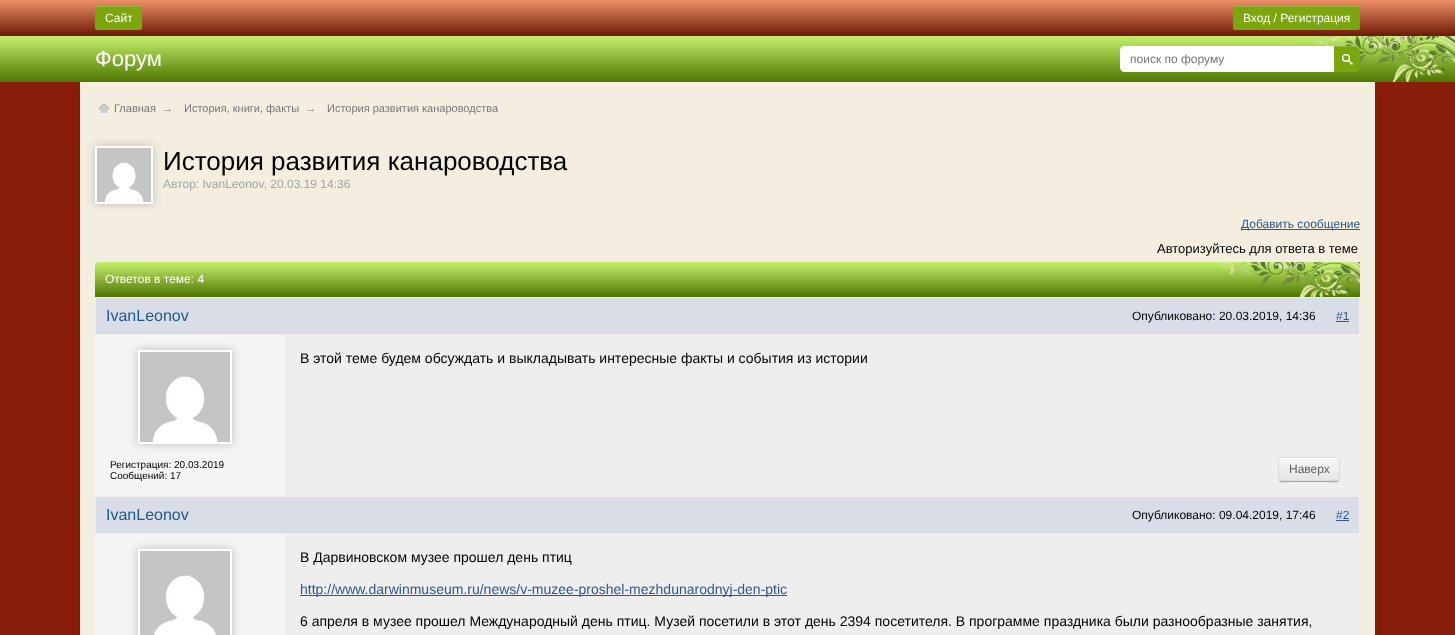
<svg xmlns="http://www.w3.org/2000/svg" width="1455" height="635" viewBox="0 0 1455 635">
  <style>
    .t1 { font: 12px Liberation Sans; fill: #fff; }
    .t2 { font: 22px Liberation Sans; fill: #fff; }
    .t3 { font: 12px Liberation Sans; fill: #777; }
    .t4 { font: 11px Liberation Sans; fill: #777; }
    .t5 { font: 26px Liberation Sans; fill: #000; }
    .t6 { font: 12px Liberation Sans; fill: #a4a4a4; }
    .t7 { font: 12px Liberation Sans; fill: #2e5889; }
    .t8 { font: 13px Liberation Sans; fill: #000; }
    .t9 { font: 16px Liberation Sans; fill: #225985; }
    .t10 { font: 12px Liberation Sans; fill: #000; }
    .t11 { font: 10px Liberation Sans; fill: #000; }
    .t12 { font: 14px Liberation Sans; fill: #000; }
    .t13 { font: 12px Liberation Sans; fill: #616161; }
    .t14 { font: 14px Liberation Sans; fill: #2e5889; }
  </style>
  <defs>
    <linearGradient id="g1" gradientUnits="userSpaceOnUse" x1="728" y1="0" x2="728" y2="36"><stop offset="0" stop-color="#ec9069"/><stop offset="1" stop-color="#6e1906"/></linearGradient>
    <linearGradient id="g2" gradientUnits="userSpaceOnUse" x1="728" y1="36" x2="728" y2="82"><stop offset="0" stop-color="#c5f06d"/><stop offset="1" stop-color="#4f7501"/></linearGradient>
    <linearGradient id="g3" gradientUnits="userSpaceOnUse" x1="728" y1="262" x2="728" y2="297"><stop offset="0" stop-color="#c5f06d"/><stop offset="1" stop-color="#4f7501"/></linearGradient>
    <clipPath id="clip1"><rect x="1278" y="457" width="62" height="24" rx="3"/></clipPath>
    <linearGradient id="g4" gradientUnits="userSpaceOnUse" x1="1279" y1="458" x2="1279" y2="480"><stop offset="0" stop-color="#f6f6f6"/><stop offset="1" stop-color="#e5e5e5"/></linearGradient>
  </defs>
  <rect width="100%" height="100%" fill="#891e0a"/>
  <rect x="0" y="0" width="1455" height="36" fill="url(#g1)"/>
  <rect x="95" y="6" width="47" height="24" rx="2" fill="#7ba60d"/>
  <path d="M97 7H140C141 7 142 8 142 9C142 4 137 6 133 6H104C100 6 95 4 95 9C95 8 96 7 97 7Z" fill="#ffffff33"/>
  <text x="105" y="22" class="t1">Сайт</text>
  <rect x="1233" y="6" width="127" height="24" rx="2" fill="#7ba60d"/>
  <path d="M1235 7H1358L1360 8V9C1360 8 1360 7 1359 6H1235L1234 7L1233 9C1233 8 1234 7 1235 7Z" fill="#ffffff33"/>
  <text x="1243" y="22" class="t1">Вход / Регистрация</text>
  <rect x="80" y="87" width="1295" height="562" fill="#0000001a" filter="blur(4.5px)"/>
  <rect x="0" y="36" width="1455" height="46" fill="url(#g2)"/>
  <text x="95" y="66" class="t2">Форум</text>
  <image x="1315" y="36" width="140" height="46" href="images/2.png"/>
  <path d="M1125 46H1334V72H1125C1122 72 1120 70 1120 67V51C1120 48 1122 46 1125 46Z" fill="#fff"/>
  <text x="1130" y="63" class="t3">поиск по форуму</text>
  <path d="M1334 46H1355C1358 46 1360 48 1360 51V67C1360 70 1358 72 1355 72H1334Z" fill="#7ba60d"/>
  <image x="1342" y="54" width="11" height="11" href="images/1.png"/>
  <path d="M1334 47H1352C1357.5 47 1359.5 48.5 1360 51C1360 44.5 1352 46 1348 46H1334Z" fill="#ffffff33"/>
  <rect x="80" y="82" width="1295" height="553" fill="#f4eee0"/>
  <image x="98" y="103" width="12" height="10" href="images/3.png"/>
  <text x="114" y="112" class="t4">Главная</text>
  <text x="162" y="112" class="t4">→</text>
  <text x="184" y="112" class="t4">История, книги, факты</text>
  <text x="305" y="112" class="t4">→</text>
  <text x="327" y="112" class="t4">История развития канароводства</text>
  <rect x="95" y="146" width="58" height="58" fill="#bbb" filter="blur(4px)"/>
  <rect x="96" y="147" width="56" height="56" fill="none" stroke="#fff" stroke-width="2"/>
  <image x="97" y="148" width="54" height="54" href="images/4.png"/>
  <text x="163" y="170" class="t5">История развития канароводства</text>
  <text x="163" y="188" class="t6">Автор: IvanLeonov, 20.03.19 14:36</text>
  <rect x="1241" y="229" width="119" height="1" fill="#2e5889"/>
  <text x="1241" y="228" class="t7">Добавить сообщение</text>
  <text x="1157" y="253" class="t8">Авторизуйтесь для ответа в теме</text>
  <path d="M99 262H1356C1358 262 1360 264 1360 266V297H95V266C95 264 97 262 99 262Z" fill="url(#g3)"/>
  <text x="105" y="283" class="t1">Ответов в теме: 4</text>
  <image x="1220" y="262" width="140" height="35" href="images/5.png"/>
  <rect x="285" y="335" width="1075" height="161" fill="#eee"/>
  <rect x="95.5" y="297.5" width="1264" height="37" fill="#d8dde8" stroke="#eee"/>
  <text x="106" y="321" class="t9">IvanLeonov</text>
  <text x="1132" y="320" class="t10">Опубликовано: 20.03.2019, 14:36</text>
  <text x="1336" y="320" class="t7">#1</text>
  <rect x="1336" y="321" width="13" height="1" fill="#2e5889"/>
  <rect x="95" y="335" width="190" height="161" fill="#f4f4f4"/>
  <rect x="138" y="350" width="94" height="94" fill="#bbb" filter="blur(4px)"/>
  <rect x="139" y="351" width="92" height="92" fill="none" stroke="#fff" stroke-width="2"/>
  <image x="140" y="352" width="90" height="90" href="images/6.png"/>
  <text x="110" y="468" class="t11">Регистрация: 20.03.2019</text>
  <text x="110" y="479" class="t11">Сообщений: 17</text>
  <text x="300" y="363" class="t12">В этой теме будем обсуждать и выкладывать интересные факты и события из истории</text>
  <path d="M1278 478C1278 484 1286 482 1290 482H1328C1332 482 1340 484 1340 478C1340 480 1339 481 1337 481H1281C1279 481 1278 480 1278 478Z" fill="#a7a7a7"/>
  <g clip-path="url(#clip1)">
    <rect x="1278" y="458" width="62" height="22" fill="url(#g4)"/>
  </g>
  <path d="M1281 459H1337C1338 459 1339 460 1339 461C1339 455 1331 458 1328 458H1290C1287 458 1279 455 1279 461C1279 460 1280 459 1281 459Z" fill="#fff"/>
  <rect x="1278.5" y="457.5" width="61" height="23" rx="2.5" fill="none" stroke="#dbdbdb"/>
  <text x="1289" y="473" class="t13">Наверх</text>
  <rect x="285" y="534" width="1075" height="101" fill="#eee"/>
  <rect x="95.5" y="496.5" width="1264" height="37" fill="#d8dde8" stroke="#eee"/>
  <text x="106" y="520" class="t9">IvanLeonov</text>
  <text x="1132" y="519" class="t10">Опубликовано: 09.04.2019, 17:46</text>
  <text x="1336" y="519" class="t7">#2</text>
  <rect x="1336" y="520" width="13" height="1" fill="#2e5889"/>
  <rect x="95" y="534" width="190" height="101" fill="#f4f4f4"/>
  <rect x="138" y="549" width="94" height="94" fill="#bbb" filter="blur(4px)"/>
  <rect x="139" y="550" width="92" height="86" fill="none" stroke="#fff" stroke-width="2"/>
  <image x="140" y="551" width="90" height="84" href="images/7.png"/>
  <text x="300" y="562" class="t12">В Дарвиновском музее прошел день птиц</text>
  <rect x="300" y="595" width="487" height="1" fill="#2e5889"/>
  <text x="300" y="594" class="t14">http://www.darwinmuseum.ru/news/v-muzee-proshel-mezhdunarodnyj-den-ptic</text>
  <text x="300" y="626" class="t12">6 апреля в музее прошел Международный день птиц. Музей посетили в этот день 2394 посетителя. В программе праздника были разнообразные занятия,</text>
</svg>
